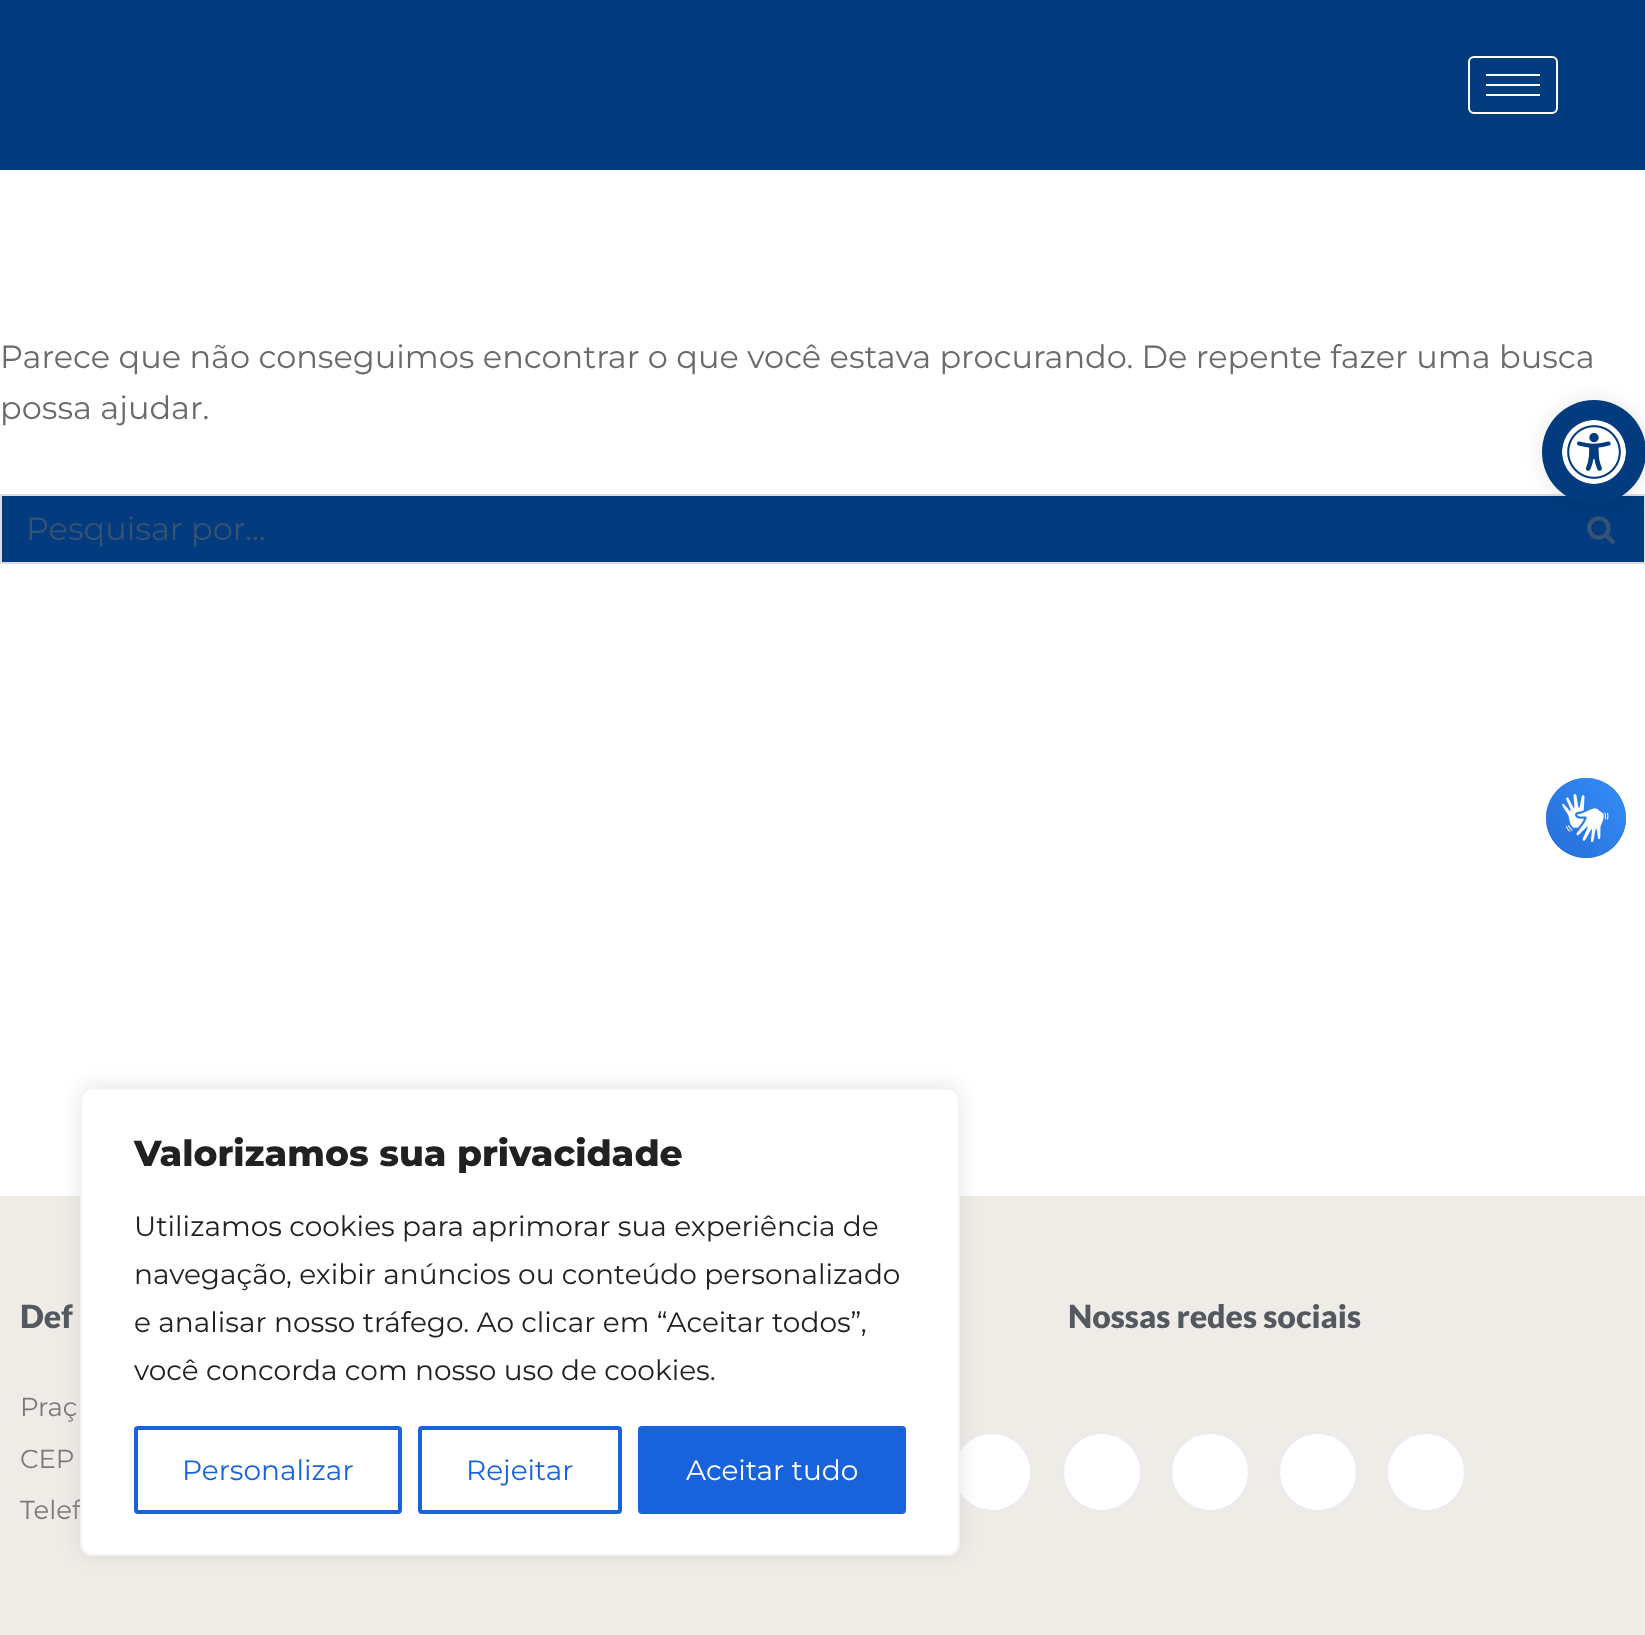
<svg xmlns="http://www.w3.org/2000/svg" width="1645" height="1635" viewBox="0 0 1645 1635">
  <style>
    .t1 { font: 32px Montserrat; fill: #6a6a6a; }
    .t2 { font: 32px Montserrat; fill: #365374; }
    .t3 { font: 900 32px Lato; fill: #54595f; }
    .t4 { font: 26px Montserrat; fill: #7a7a7a; }
    .t5 { font: 800 36px Montserrat; fill: #212121; }
    .t6 { font: 28px Montserrat; fill: #212121; }
    .t7 { font: 28px Montserrat; fill: #1863dc; }
    .t8 { font: 28px Montserrat; fill: #fff; }
  </style>
  <rect width="100%" height="100%" fill="#fff"/>
  <rect x="0" y="0" width="1645" height="170" fill="#023b7e"/>
  <rect x="1469" y="57" width="88" height="56" rx="5" fill="none" stroke="#fff" stroke-width="2"/>
  <rect x="1486" y="74" width="54" height="2" fill="#fff"/>
  <rect x="1486" y="84" width="54" height="2" fill="#fff"/>
  <rect x="1486" y="94" width="54" height="2" fill="#fff"/>
  <text x="0" y="368" class="t1">Parece que não conseguimos encontrar o que você estava procurando. De repente fazer uma busca</text>
  <text x="0" y="419" class="t1">possa ajudar.</text>
  <rect x="2" y="496" width="1642" height="66" fill="#023b7e"/>
  <rect x="0" y="494" width="1645" height="2" fill="#ddd"/>
  <rect x="0" y="562" width="1556" height="2" fill="#ddd"/>
  <rect x="0" y="494" width="2" height="70" fill="#ddd"/>
  <text x="26" y="540" class="t2">Pesquisar por...</text>
  <rect x="1644" y="494" width="1" height="70" fill="#ddd"/>
  <rect x="1556" y="562" width="89" height="2" fill="#ddd"/>
  <image x="1587" y="516" width="28" height="28" href="images/1.png"/>
  <rect x="0" y="1196" width="1645" height="439" fill="#efece7"/>
  <text x="20" y="1328" class="t3">Def</text>
  <text x="20" y="1416" class="t4">Praç</text>
  <text x="20" y="1468" class="t4">CEP</text>
  <text x="20" y="1519" class="t4">Telef</text>
  <text x="1068" y="1328" class="t3">Nossas redes sociais</text>
  <circle cx="992" cy="1472" r="39" fill="#fff" stroke="#eaebf1" stroke-width="2"/>
  <circle cx="1102" cy="1472" r="39" fill="#fff" stroke="#eaebf1" stroke-width="2"/>
  <circle cx="1210" cy="1472" r="39" fill="#fff" stroke="#eaebf1" stroke-width="2"/>
  <circle cx="1318" cy="1472" r="39" fill="#fff" stroke="#eaebf1" stroke-width="2"/>
  <circle cx="1426" cy="1472" r="39" fill="#fff" stroke="#eaebf1" stroke-width="2"/>
  <rect x="1542" y="400" width="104" height="104" rx="52" fill="#0000001a" filter="blur(10px)"/>
  <circle cx="1594" cy="452" r="52" fill="#023b7e"/>
  <image x="1562" y="420" width="64" height="64" href="images/2.png"/>
  <image x="1546" y="778" width="80" height="80" href="images/3.png"/>
  <image x="1546" y="778" width="80" height="80" href="images/4.png"/>
  <rect x="80" y="1086" width="880" height="468" rx="12" fill="#acabab4d" filter="blur(10px)"/>
  <rect x="81" y="1089" width="878" height="466" rx="11" fill="#fff" stroke="#f4f4f4" stroke-width="2"/>
  <text x="134" y="1166" class="t5">Valorizamos sua privacidade</text>
  <text x="134" y="1236" class="t6">Utilizamos cookies para aprimorar sua experiência de</text>
  <text x="134" y="1284" class="t6">navegação, exibir anúncios ou conteúdo personalizado</text>
  <text x="134" y="1332" class="t6">e analisar nosso tráfego. Ao clicar em “Aceitar todos”,</text>
  <text x="134" y="1380" class="t6">você concorda com nosso uso de cookies.</text>
  <rect x="136" y="1428" width="264" height="84" rx="2" fill="none" stroke="#1863dc" stroke-width="4"/>
  <text x="182" y="1480" class="t7">Personalizar</text>
  <rect x="420" y="1428" width="200" height="84" rx="2" fill="none" stroke="#1863dc" stroke-width="4"/>
  <text x="466" y="1480" class="t7">Rejeitar</text>
  <rect x="640" y="1428" width="264" height="84" rx="2" fill="#1863dc" stroke="#1863dc" stroke-width="4"/>
  <text x="686" y="1480" class="t8">Aceitar tudo</text>
</svg>
